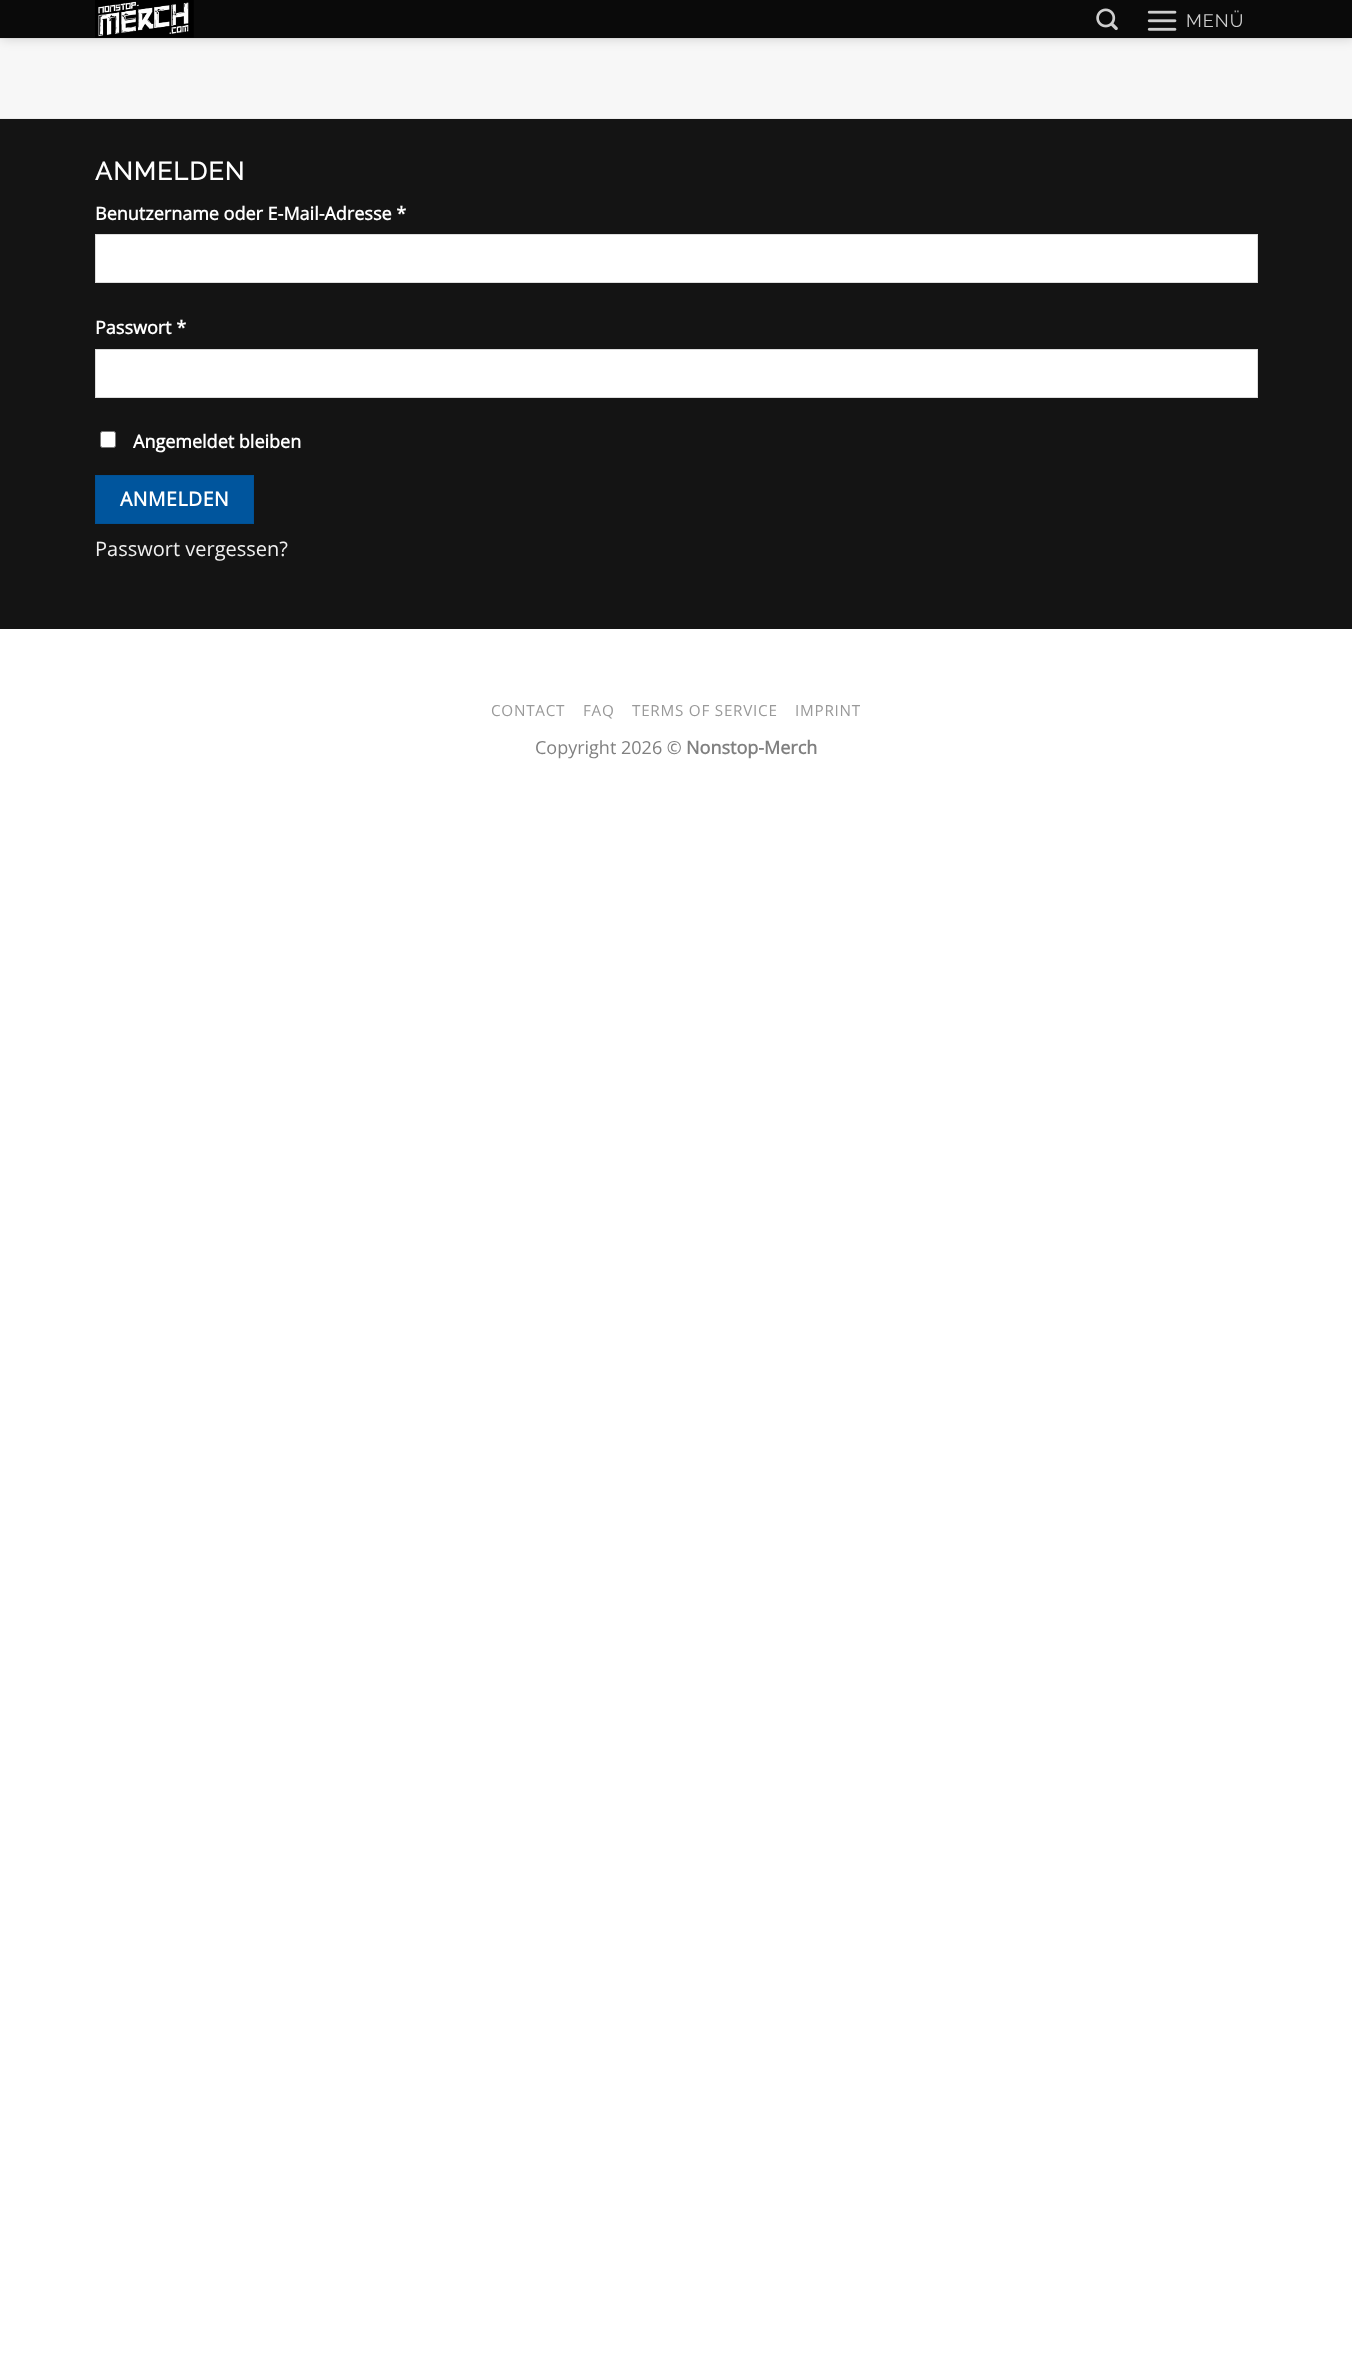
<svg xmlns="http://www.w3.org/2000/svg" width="1352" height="2364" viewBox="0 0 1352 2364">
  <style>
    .t1 { font: 18px Raleway; letter-spacing: 1px; fill: #cecece; }
    .t2 { font: bold 25px Raleway; letter-spacing: 1.25px; fill: #fff; }
    .t3 { font: bold 18px Open Sans; fill: #fff; }
    .t4 { font: bold 19.5px Open Sans; letter-spacing: 0.5px; fill: #fff; }
    .t5 { font: 20px Open Sans; fill: #f1f1f1; }
    .t6 { font: 15.25px Open Sans; letter-spacing: 0.75px; fill: #999; }
    .t7 { font: 18px Open Sans; fill: #808080; }
    .t8 { font: bold 18px Open Sans; fill: #808080; }
  </style>
  <rect width="100%" height="100%" fill="#fff"/>
  <rect x="0" y="39" width="1352" height="79" fill="#f7f7f7"/>
  <rect x="0" y="38" width="1352" height="1" fill="#ececec"/>
  <rect x="1" y="1" width="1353" height="38" fill="#00000026" filter="blur(6px)"/>
  <rect x="0" y="0" width="1352" height="38" fill="#0a0a0a"/>
  <image x="95" y="0" width="99" height="38" href="images/1.png"/>
  <image x="1096" y="8" width="22" height="23" href="images/2.png"/>
  <image x="1147" y="10" width="30" height="21" href="images/3.png"/>
  <text x="1186" y="27" class="t1">MENÜ</text>
  <rect x="0" y="119" width="1352" height="510" fill="#141414"/>
  <rect x="0" y="118" width="1352" height="1" fill="#ececec"/>
  <text x="95" y="180" class="t2">ANMELDEN</text>
  <text x="95" y="220" class="t3">Benutzername oder E-Mail-Adresse *</text>
  <rect x="95.5" y="234.5" width="1162" height="48" fill="#fff" stroke="#ddd"/>
  <text x="95" y="334" class="t3">Passwort *</text>
  <rect x="95.5" y="349.5" width="1162" height="48" fill="#fff" stroke="#ddd"/>
  <rect x="100.5" y="431.5" width="15" height="16" rx="2" fill="#fff" stroke="#767676"/>
  <text x="133" y="448" class="t3">Angemeldet bleiben</text>
  <rect x="95.5" y="475.5" width="158" height="48" fill="#00559d" stroke="#005195"/>
  <text x="120" y="506" class="t4">ANMELDEN</text>
  <text x="95" y="556" class="t5">Passwort vergessen?</text>
  <text x="491" y="716" class="t6">CONTACT</text>
  <text x="583" y="716" class="t6">FAQ</text>
  <text x="632" y="716" class="t6">TERMS OF SERVICE</text>
  <text x="795" y="716" class="t6">IMPRINT</text>
  <text x="535" y="754" class="t7">Copyright 2026 ©</text>
  <text x="686" y="754" class="t8">Nonstop-Merch</text>
</svg>
